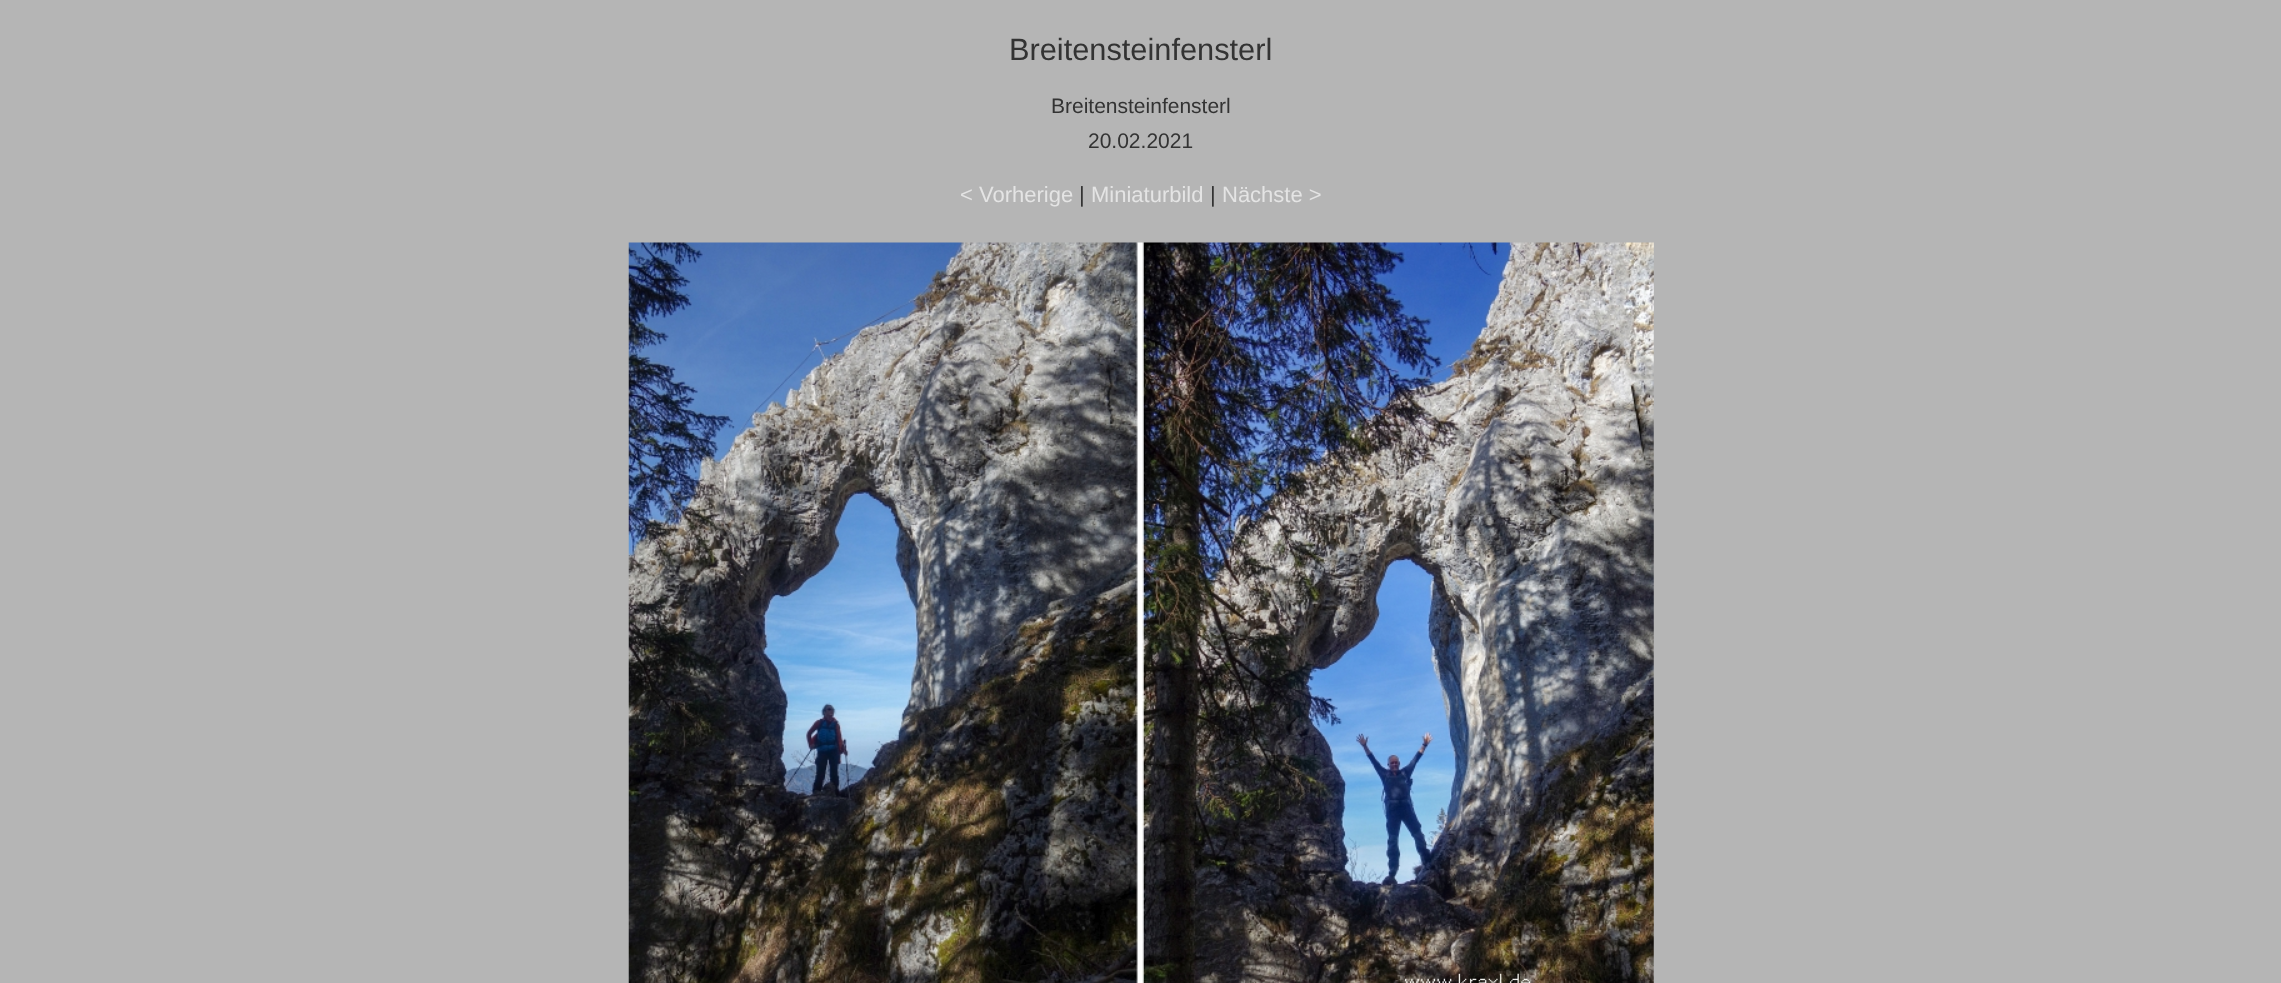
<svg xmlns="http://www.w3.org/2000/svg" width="2281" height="983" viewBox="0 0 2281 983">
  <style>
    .t1 { font: 30.75px Liberation Sans; fill: #333; }
    .t2 { font: 21px Liberation Sans; fill: #333; }
    .t3 { font: 22px Liberation Sans; fill: #e4e4e4; }
    .t4 { font: 22px Liberation Sans; fill: #333; }
  </style>
  <rect width="100%" height="100%" fill="#b5b5b5"/>
  <text x="1009" y="60" class="t1">Breitensteinfensterl</text>
  <text x="1051" y="113" class="t2">Breitensteinfensterl</text>
  <text x="1088" y="148" class="t2">20.02.2021</text>
  <text x="960" y="202" class="t3">&lt; Vorherige</text>
  <text x="1079" y="202" class="t4">|</text>
  <text x="1091" y="202" class="t3">Miniaturbild</text>
  <text x="1210" y="202" class="t4">|</text>
  <text x="1222" y="202" class="t3">Nächste &gt;</text>
  <image x="628" y="242" width="1026" height="741" href="images/1.png"/>
</svg>
